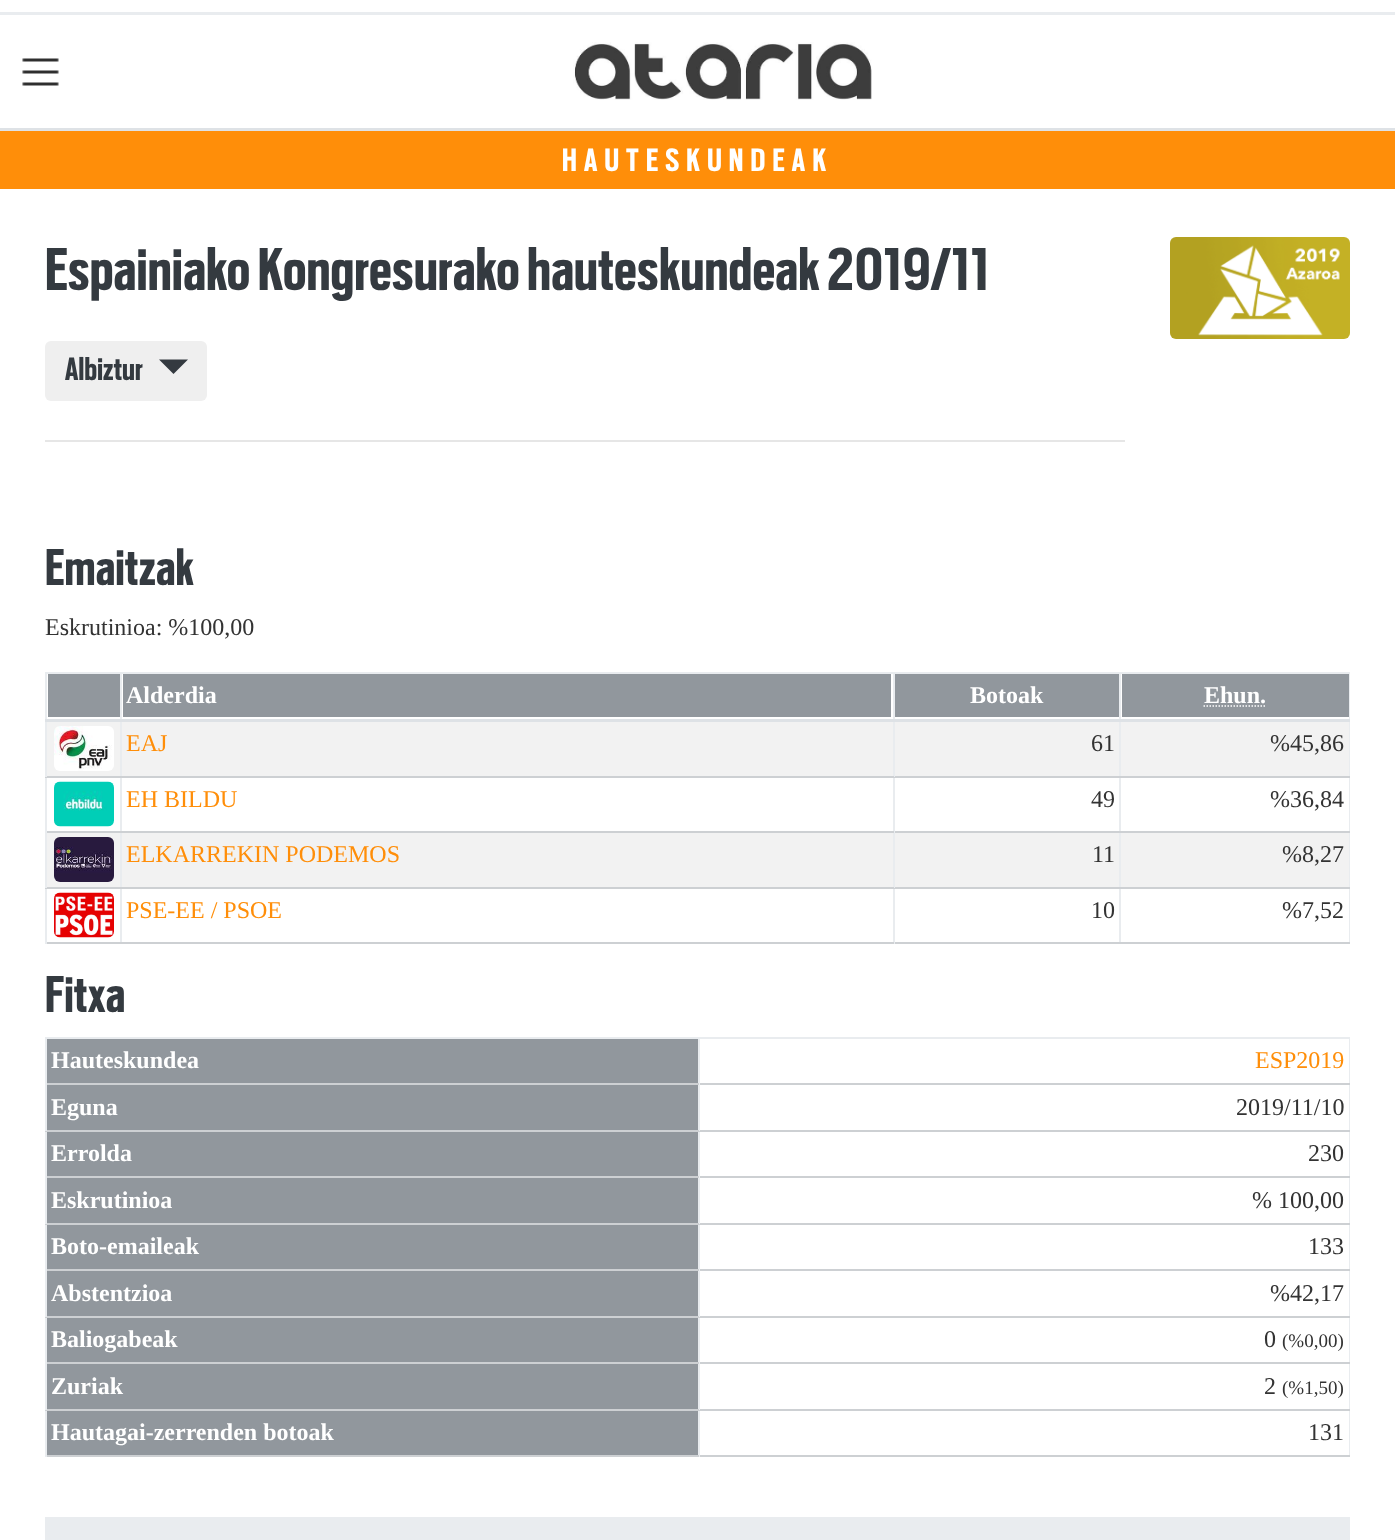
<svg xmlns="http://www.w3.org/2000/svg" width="1395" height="1540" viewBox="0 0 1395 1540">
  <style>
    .t1 { font: bold 36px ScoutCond; letter-spacing: 7.25px; fill: #fff; }
    .t2 { font: bold 67.25px ScoutCond; letter-spacing: 0.65px; fill: #343a40; }
    .t3 { font: bold 36px ScoutCond; letter-spacing: 0.25px; fill: #343a40; }
    .t4 { font: bold 57.5px ScoutCond; letter-spacing: 0.5px; fill: #343a40; }
    .t5 { font: 24px Liberation Serif; fill: #333; }
    .t6 { font: bold 24px Liberation Serif; fill: #fff; }
    .t7 { font: 24px Liberation Serif; fill: #ff8e09; }
    .t8 { font: 19px Liberation Serif; fill: #333; }
  </style>
  <rect width="100%" height="100%" fill="#fff"/>
  <rect x="0" y="12" width="1395" height="3" fill="#e9ecef"/>
  <image x="22" y="58" width="37" height="28" href="images/1.png"/>
  <image x="573" y="42" width="299" height="58" href="images/2.png"/>
  <rect x="0" y="128" width="1395" height="3" fill="#dee2e6"/>
  <rect x="0" y="131" width="1395" height="58" fill="#ff8e09"/>
  <text x="562" y="171" class="t1">HAUTESKUNDEAK</text>
  <text x="45" y="290" class="t2">Espainiako Kongresurako hauteskundeak 2019/11</text>
  <rect x="45" y="341" width="162" height="60" rx="6" fill="#efefef"/>
  <text x="65" y="380" class="t3">Albiztur</text>
  <path d="M159 359.5H188L173.5 374Z" fill="#343a40"/>
  <rect x="45" y="440" width="1080" height="2" fill="#e6e6e6"/>
  <image x="1170" y="237" width="180" height="102" href="images/3.png"/>
  <text x="45" y="585" class="t4">Emaitzak</text>
  <text x="45" y="635" class="t5">Eskrutinioa: %100,00</text>
  <rect x="45" y="672" width="1305" height="2" fill="#e9ecef"/>
  <rect x="1349" y="672" width="1" height="272" fill="#e9ecef"/>
  <rect x="45" y="672" width="2" height="47" fill="#e9ecef"/>
  <rect x="48" y="674" width="72" height="43" fill="#91979d"/>
  <rect x="123" y="674" width="768" height="43" fill="#91979d"/>
  <text x="126" y="703" class="t6">Alderdia</text>
  <rect x="895" y="674" width="224" height="43" fill="#91979d"/>
  <text x="970" y="703" class="t6">Botoak</text>
  <rect x="1122" y="674" width="227" height="43" fill="#91979d"/>
  <rect x="47" y="833" width="1302" height="54" fill="#f2f2f2"/>
  <rect x="1119" y="942" width="231" height="2" fill="#cdd0d3"/>
  <rect x="1119" y="887" width="2" height="57" fill="#e9ecef"/>
  <rect x="1119" y="887" width="231" height="2" fill="#cdd0d3"/>
  <rect x="1119" y="831" width="2" height="57" fill="#e9ecef"/>
  <rect x="1119" y="831" width="231" height="2" fill="#cdd0d3"/>
  <rect x="1119" y="776" width="2" height="57" fill="#e9ecef"/>
  <rect x="1119" y="776" width="231" height="2" fill="#cdd0d3"/>
  <rect x="47" y="722" width="1302" height="54" fill="#f2f2f2"/>
  <rect x="1119" y="672" width="2" height="105" fill="#e9ecef"/>
  <rect x="893" y="942" width="228" height="2" fill="#cdd0d3"/>
  <rect x="893" y="887" width="2" height="57" fill="#e9ecef"/>
  <rect x="893" y="887" width="228" height="2" fill="#cdd0d3"/>
  <rect x="893" y="831" width="2" height="57" fill="#e9ecef"/>
  <rect x="893" y="831" width="228" height="2" fill="#cdd0d3"/>
  <rect x="893" y="776" width="2" height="57" fill="#e9ecef"/>
  <rect x="893" y="776" width="228" height="2" fill="#cdd0d3"/>
  <rect x="893" y="672" width="2" height="105" fill="#e9ecef"/>
  <rect x="120" y="942" width="774" height="2" fill="#cdd0d3"/>
  <rect x="120" y="887" width="2" height="57" fill="#e9ecef"/>
  <rect x="120" y="887" width="774" height="2" fill="#cdd0d3"/>
  <rect x="120" y="831" width="2" height="57" fill="#e9ecef"/>
  <rect x="120" y="831" width="774" height="2" fill="#cdd0d3"/>
  <rect x="120" y="776" width="2" height="57" fill="#e9ecef"/>
  <rect x="120" y="776" width="774" height="2" fill="#cdd0d3"/>
  <rect x="120" y="672" width="2" height="105" fill="#e9ecef"/>
  <rect x="45" y="942" width="77" height="2" fill="#cdd0d3"/>
  <rect x="45" y="887" width="2" height="57" fill="#e9ecef"/>
  <rect x="45" y="887" width="77" height="2" fill="#cdd0d3"/>
  <rect x="45" y="831" width="2" height="57" fill="#e9ecef"/>
  <rect x="45" y="831" width="77" height="2" fill="#cdd0d3"/>
  <rect x="45" y="776" width="2" height="57" fill="#e9ecef"/>
  <rect x="45" y="776" width="77" height="2" fill="#cdd0d3"/>
  <rect x="45" y="719" width="2" height="58" fill="#e9ecef"/>
  <rect x="45" y="719" width="1305" height="3" fill="#dee2e6"/>
  <text x="1204" y="703" class="t6">Ehun.</text>
  <path d="M1203.5 706H1265.5" fill="none" stroke="#fff" stroke-width="1.5" stroke-dasharray="1.5 1.5"/>
  <image x="54" y="726" width="60" height="45" href="images/4.png"/>
  <text x="126" y="751" class="t7">EAJ</text>
  <text x="1091" y="751" class="t5">61</text>
  <text x="1270" y="751" class="t5">%45,86</text>
  <image x="54" y="781" width="60" height="46" href="images/5.png"/>
  <text x="126" y="807" class="t7">EH BILDU</text>
  <text x="1091" y="807" class="t5">49</text>
  <text x="1270" y="807" class="t5">%36,84</text>
  <image x="54" y="837" width="60" height="45" href="images/6.png"/>
  <text x="126" y="862" class="t7">ELKARREKIN PODEMOS</text>
  <text x="1092" y="862" class="t5">11</text>
  <text x="1282" y="862" class="t5">%8,27</text>
  <image x="54" y="892" width="60" height="46" href="images/7.png"/>
  <text x="126" y="918" class="t7">PSE-EE / PSOE</text>
  <text x="1091" y="918" class="t5">10</text>
  <text x="1282" y="918" class="t5">%7,52</text>
  <text x="45" y="1012" class="t4">Fitxa</text>
  <rect x="45" y="1037" width="1305" height="2" fill="#e9ecef"/>
  <rect x="1349" y="1037" width="1" height="420" fill="#e9ecef"/>
  <rect x="47" y="1039" width="651" height="44" fill="#91979d"/>
  <rect x="698" y="1455" width="652" height="2" fill="#cdd0d3"/>
  <rect x="698" y="1409" width="2" height="48" fill="#e9ecef"/>
  <rect x="698" y="1409" width="652" height="2" fill="#cdd0d3"/>
  <rect x="698" y="1362" width="2" height="48" fill="#e9ecef"/>
  <rect x="698" y="1362" width="652" height="2" fill="#cdd0d3"/>
  <rect x="698" y="1316" width="2" height="48" fill="#e9ecef"/>
  <rect x="698" y="1316" width="652" height="2" fill="#cdd0d3"/>
  <rect x="698" y="1269" width="2" height="48" fill="#e9ecef"/>
  <rect x="698" y="1269" width="652" height="2" fill="#cdd0d3"/>
  <rect x="698" y="1223" width="2" height="48" fill="#e9ecef"/>
  <rect x="698" y="1223" width="652" height="2" fill="#cdd0d3"/>
  <rect x="698" y="1176" width="2" height="48" fill="#e9ecef"/>
  <rect x="698" y="1176" width="652" height="2" fill="#cdd0d3"/>
  <rect x="698" y="1130" width="2" height="48" fill="#e9ecef"/>
  <rect x="698" y="1130" width="652" height="2" fill="#cdd0d3"/>
  <rect x="698" y="1083" width="2" height="48" fill="#e9ecef"/>
  <rect x="698" y="1083" width="652" height="2" fill="#cdd0d3"/>
  <rect x="698" y="1037" width="2" height="48" fill="#e9ecef"/>
  <rect x="45" y="1455" width="654" height="2" fill="#cdd0d3"/>
  <rect x="45" y="1409" width="2" height="48" fill="#e9ecef"/>
  <rect x="45" y="1409" width="654" height="2" fill="#cdd0d3"/>
  <rect x="45" y="1362" width="2" height="48" fill="#e9ecef"/>
  <rect x="45" y="1362" width="654" height="2" fill="#cdd0d3"/>
  <rect x="45" y="1316" width="2" height="48" fill="#e9ecef"/>
  <rect x="45" y="1316" width="654" height="2" fill="#cdd0d3"/>
  <rect x="45" y="1269" width="2" height="48" fill="#e9ecef"/>
  <rect x="45" y="1269" width="654" height="2" fill="#cdd0d3"/>
  <rect x="45" y="1223" width="2" height="48" fill="#e9ecef"/>
  <rect x="45" y="1223" width="654" height="2" fill="#cdd0d3"/>
  <rect x="45" y="1176" width="2" height="48" fill="#e9ecef"/>
  <rect x="45" y="1176" width="654" height="2" fill="#cdd0d3"/>
  <rect x="45" y="1130" width="2" height="48" fill="#e9ecef"/>
  <rect x="45" y="1130" width="654" height="2" fill="#cdd0d3"/>
  <rect x="45" y="1083" width="2" height="48" fill="#e9ecef"/>
  <rect x="45" y="1083" width="654" height="2" fill="#cdd0d3"/>
  <rect x="45" y="1037" width="2" height="48" fill="#e9ecef"/>
  <text x="51" y="1068" class="t6">Hauteskundea</text>
  <text x="1255" y="1068" class="t7">ESP2019</text>
  <rect x="47" y="1085" width="651" height="45" fill="#91979d"/>
  <text x="51" y="1115" class="t6">Eguna</text>
  <text x="1236" y="1115" class="t5">2019/11/10</text>
  <rect x="47" y="1132" width="651" height="44" fill="#91979d"/>
  <text x="51" y="1161" class="t6">Errolda</text>
  <text x="1308" y="1161" class="t5">230</text>
  <rect x="47" y="1178" width="651" height="45" fill="#91979d"/>
  <text x="51" y="1208" class="t6">Eskrutinioa</text>
  <text x="1252" y="1208" class="t5">% 100,00</text>
  <rect x="47" y="1225" width="651" height="44" fill="#91979d"/>
  <text x="51" y="1254" class="t6">Boto-emaileak</text>
  <text x="1308" y="1254" class="t5">133</text>
  <rect x="47" y="1271" width="651" height="45" fill="#91979d"/>
  <text x="51" y="1301" class="t6">Abstentzioa</text>
  <text x="1270" y="1301" class="t5">%42,17</text>
  <rect x="47" y="1318" width="651" height="44" fill="#91979d"/>
  <text x="51" y="1347" class="t6">Baliogabeak</text>
  <text x="1264" y="1347" class="t5">0</text>
  <text x="1282" y="1347" class="t8">(%0,00)</text>
  <rect x="47" y="1364" width="651" height="45" fill="#91979d"/>
  <text x="51" y="1394" class="t6">Zuriak</text>
  <text x="1264" y="1394" class="t5">2</text>
  <text x="1282" y="1394" class="t8">(%1,50)</text>
  <rect x="47" y="1411" width="651" height="44" fill="#91979d"/>
  <text x="51" y="1440" class="t6">Hautagai-zerrenden botoak</text>
  <text x="1308" y="1440" class="t5">131</text>
  <rect x="45" y="1517" width="1305" height="23" fill="#e9ecef"/>
</svg>
